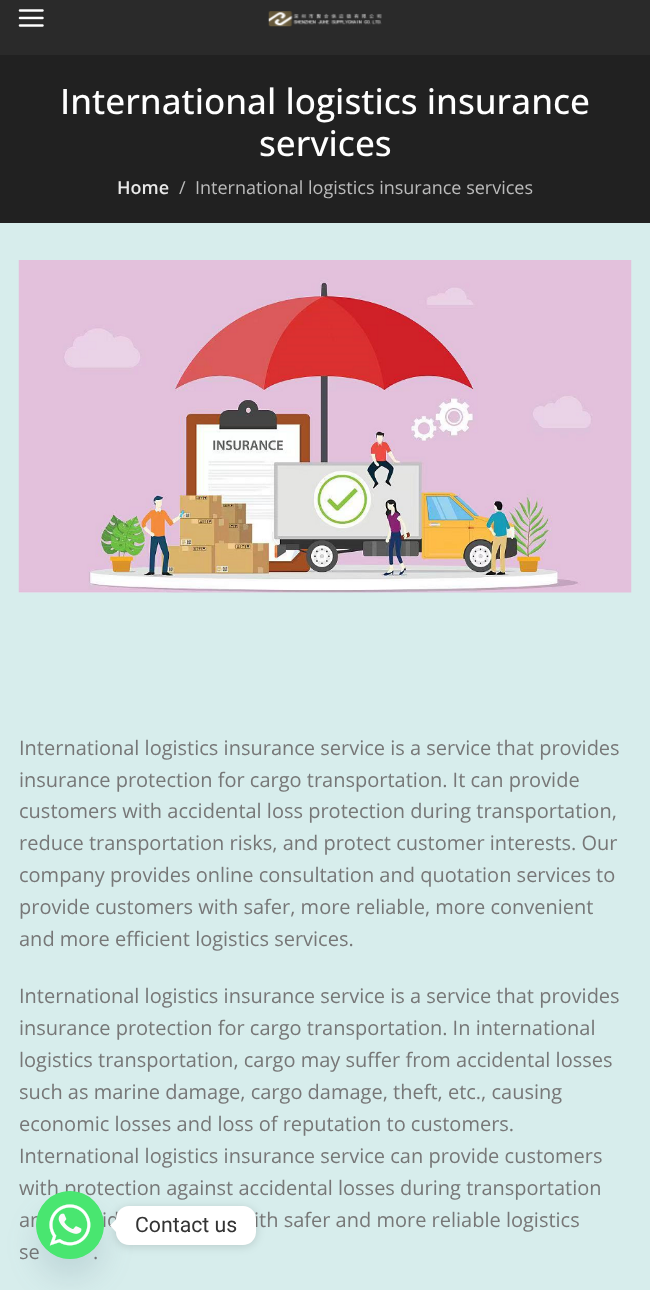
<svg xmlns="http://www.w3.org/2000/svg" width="650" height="1290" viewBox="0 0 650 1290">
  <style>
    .t1 { font: 500 35px Open Sans; fill: #fff; }
    .t2 { font: 600 18px Open Sans; fill: #e9e9e9; }
    .t3 { font: 18px Open Sans; fill: #bcbcbc; }
    .t4 { font: 20px Open Sans; fill: #777; }
    .t5 { font: 21.25px Roboto; fill: #333; }
  </style>
  <rect width="100%" height="100%" fill="#d7edec"/>
  <rect x="0" y="0" width="650" height="55" fill="#2a2a2a"/>
  <image x="18" y="9" width="26" height="18" href="images/1.png"/>
  <image x="268" y="11" width="114" height="16" href="images/2.png"/>
  <rect x="0" y="55" width="650" height="168" fill="#212121"/>
  <text x="60" y="114" class="t1">International logistics insurance</text>
  <text x="259" y="156" class="t1">services</text>
  <text x="117" y="194" class="t2">Home</text>
  <text x="179" y="194" class="t3">/</text>
  <text x="195" y="194" class="t3">International logistics insurance services</text>
  <image x="18" y="260" width="614" height="333" href="images/3.png"/>
  <text x="19" y="755" class="t4">International logistics insurance service is a service that provides</text>
  <text x="19" y="787" class="t4">insurance protection for cargo transportation. It can provide</text>
  <text x="19" y="818" class="t4">customers with accidental loss protection during transportation,</text>
  <text x="19" y="850" class="t4">reduce transportation risks, and protect customer interests. Our</text>
  <text x="19" y="882" class="t4">company provides online consultation and quotation services to</text>
  <text x="19" y="914" class="t4">provide customers with safer, more reliable, more convenient</text>
  <text x="19" y="946" class="t4">and more efficient logistics services.</text>
  <text x="19" y="1003" class="t4">International logistics insurance service is a service that provides</text>
  <text x="19" y="1035" class="t4">insurance protection for cargo transportation. In international</text>
  <text x="19" y="1067" class="t4">logistics transportation, cargo may suffer from accidental losses</text>
  <text x="19" y="1099" class="t4">such as marine damage, cargo damage, theft, etc., causing</text>
  <text x="19" y="1131" class="t4">economic losses and loss of reputation to customers.</text>
  <text x="19" y="1163" class="t4">International logistics insurance service can provide customers</text>
  <text x="19" y="1195" class="t4">with protection against accidental losses during transportation</text>
  <text x="19" y="1227" class="t4">an</text>
  <text x="102" y="1227" class="t4">id</text>
  <text x="254" y="1227" class="t4">ith safer and more reliable logistics</text>
  <text x="19" y="1259" class="t4">se</text>
  <text x="93" y="1259" class="t4">.</text>
  <rect x="36" y="1211" width="68" height="68" rx="34" fill="#49687e29" filter="blur(15px)"/>
  <circle cx="70" cy="1225" r="34" fill="#49e670"/>
  <image x="36" y="1191" width="68" height="68" href="images/4.png"/>
  <rect x="116" y="1208" width="140" height="38" rx="13" fill="#00000026" filter="blur(5px)"/>
  <rect x="116" y="1206" width="140" height="39" rx="13" fill="#fff"/>
  <path d="M116 1219.5V1232L110 1225.5Z" fill="#fff"/>
  <text x="135" y="1232" class="t5">Contact us</text>
</svg>
